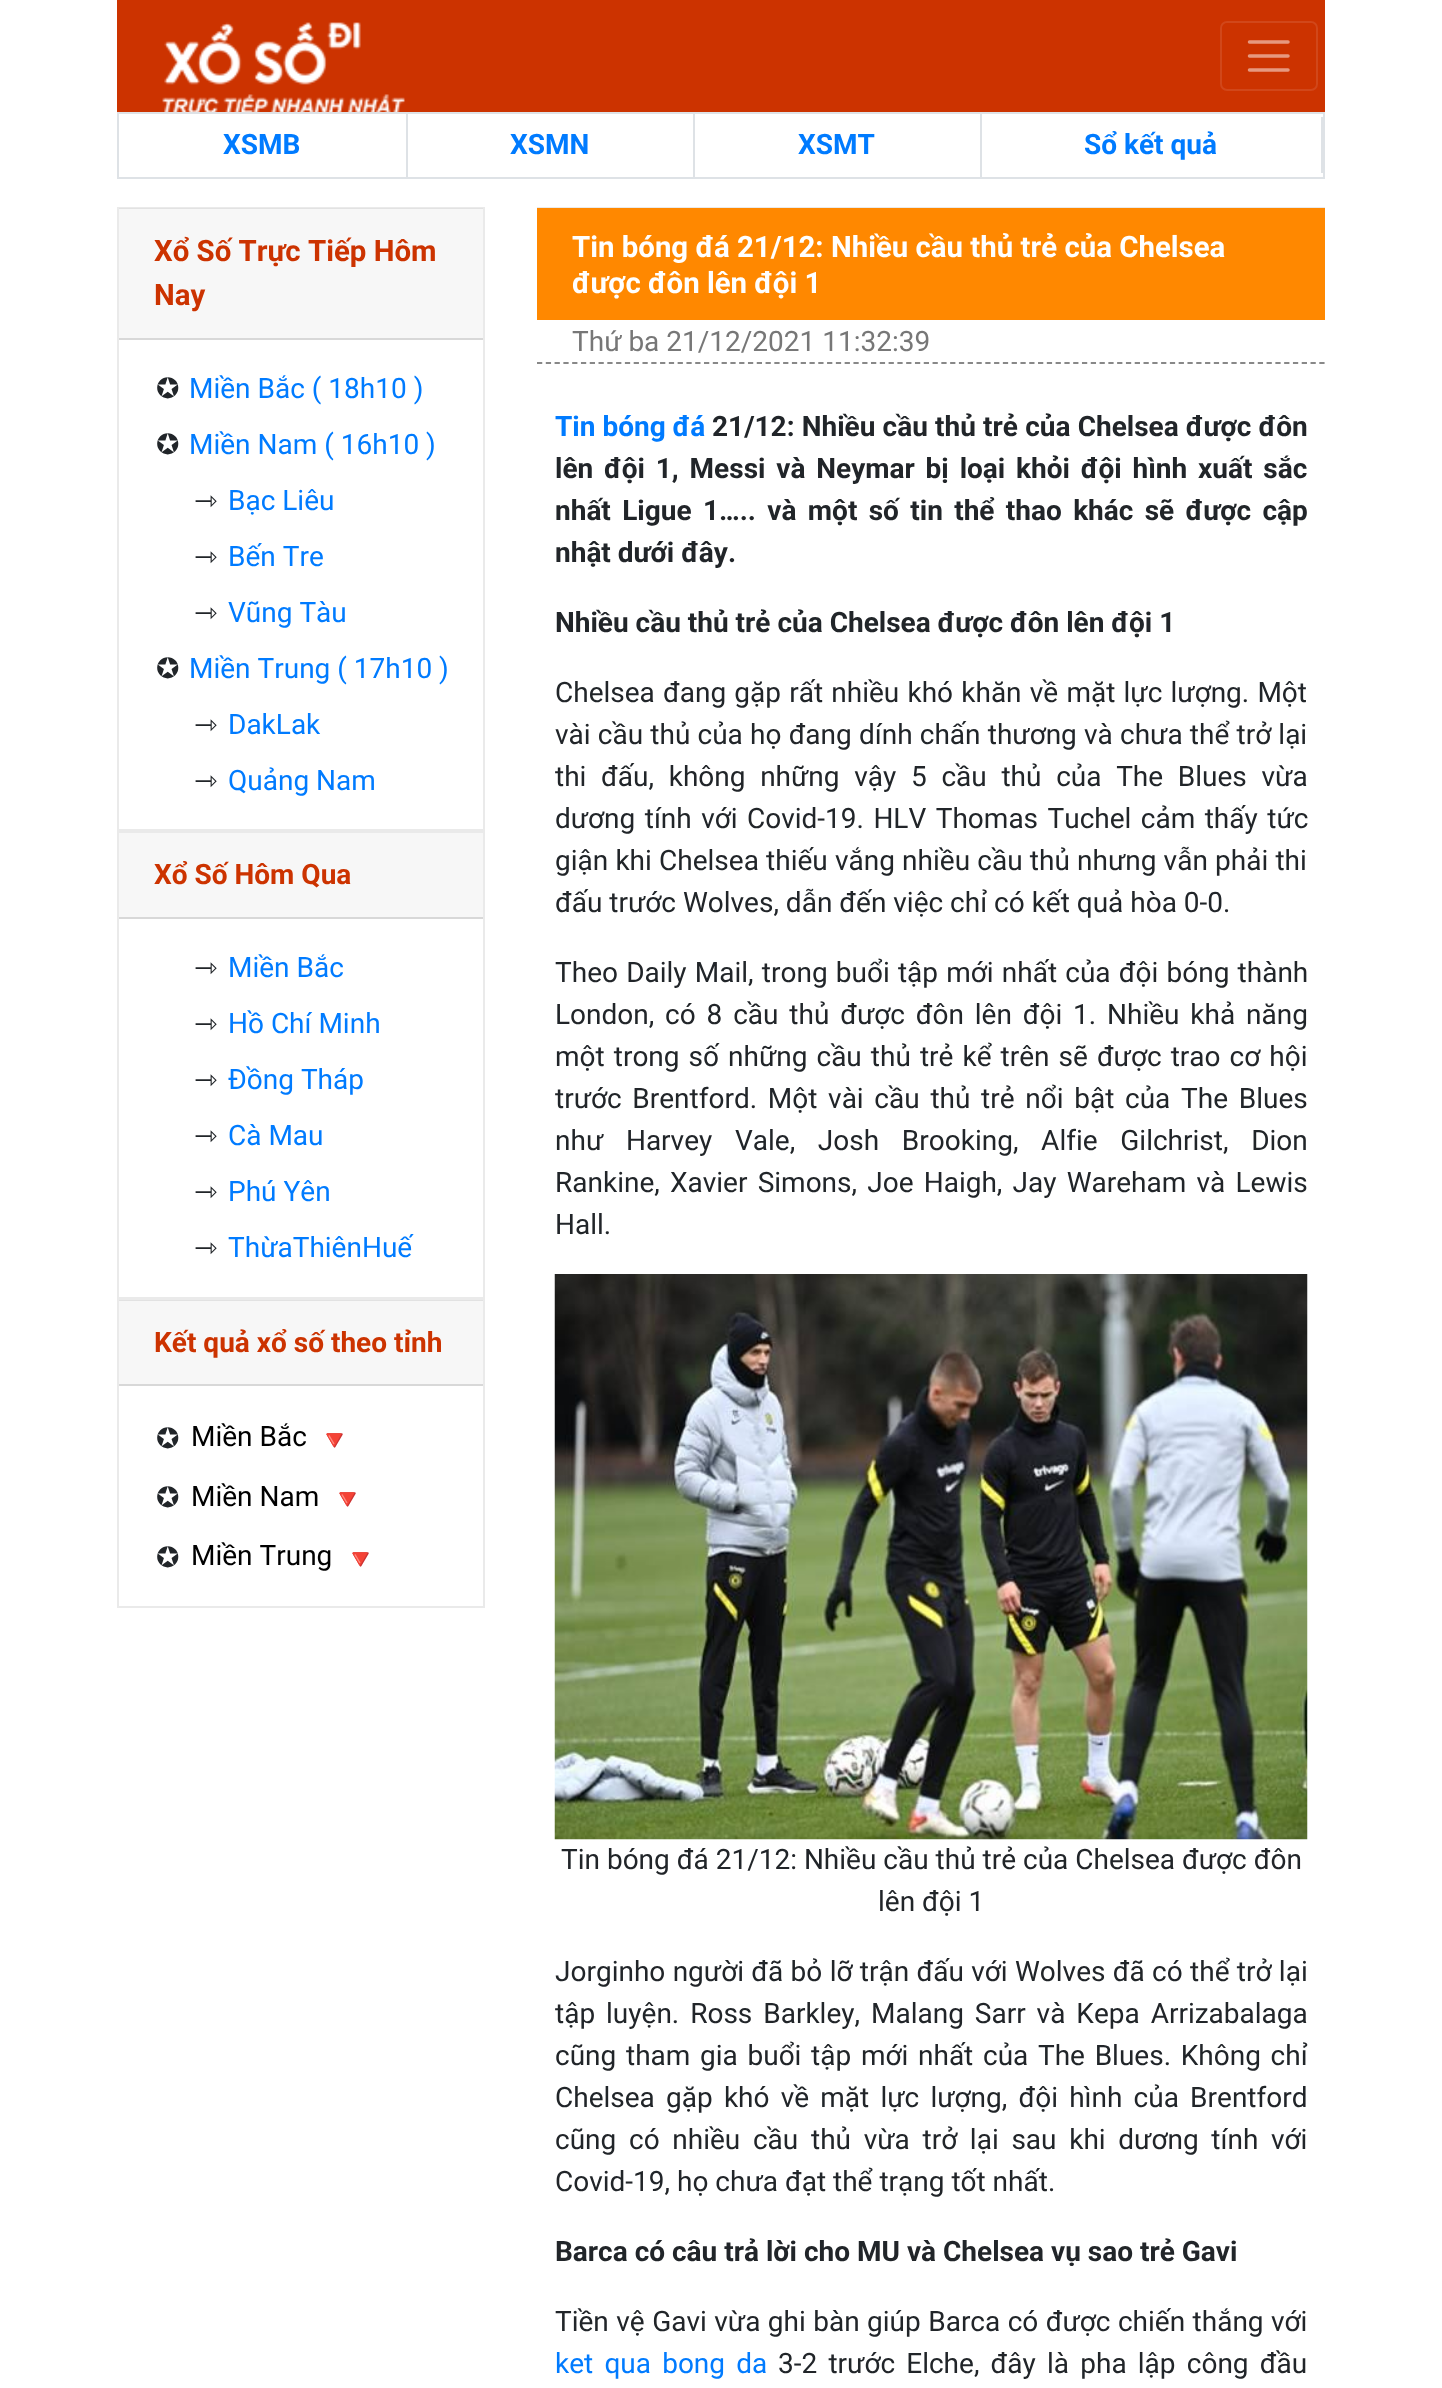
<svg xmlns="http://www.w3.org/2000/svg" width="1442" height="2388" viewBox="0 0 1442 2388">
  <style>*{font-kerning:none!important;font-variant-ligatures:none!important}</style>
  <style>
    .t1 { font: bold 28px Roboto; fill: #007bff; }
    .t2 { font: bold 29.4px Roboto; fill: #c30; }
    .t3 { font: 28px DejaVu Sans; fill: #212529; }
    .t4 { font: 28px Roboto; fill: #007bff; }
    .t5 { font: bold 28px Roboto; fill: #c30; }
    .t6 { font: 28px Roboto; fill: #000; }
    .t7 { font: 28px Noto Color Emoji; fill: #000; }
    .t8 { font: bold 29.4px Roboto; fill: #fff; }
    .t9 { font: 28px Roboto; fill: #777; }
    .t10 { font: bold 28px Roboto; fill: #212529; }
    .t11 { font: 28px Roboto; fill: #212529; }
  </style>
  <rect width="100%" height="100%" fill="#fff"/>
  <rect x="117" y="0" width="1208" height="112" fill="#c30"/>
  <image x="162" y="22" width="243" height="90" href="images/1.png"/>
  <rect x="1221" y="22" width="96" height="68" rx="6" fill="none" stroke="#d1471a" stroke-width="2"/>
  <path d="M1249.5 42H1288M1249.5 56H1288M1249.5 70H1288" fill="none" stroke="#e69980" stroke-width="3.5" stroke-linecap="round"/>
  <rect x="118" y="113" width="1206" height="65" fill="none" stroke="#dee2e6" stroke-width="2"/>
  <rect x="406" y="114" width="2" height="63" fill="#dee2e6"/>
  <text x="223" y="154" class="t1">XSMB</text>
  <rect x="693" y="114" width="2" height="63" fill="#dee2e6"/>
  <text x="510" y="154" class="t1">XSMN</text>
  <rect x="980" y="114" width="2" height="63" fill="#dee2e6"/>
  <text x="798" y="154" class="t1">XSMT</text>
  <rect x="1321" y="117" width="2" height="56" fill="#dee2e6"/>
  <text x="1084" y="154" class="t1">Sổ kết quả</text>
  <rect x="118" y="208" width="366" height="622" fill="none" stroke="#eaeaea" stroke-width="2"/>
  <rect x="119" y="208" width="364" height="130" fill="#00000008"/>
  <rect x="119" y="338" width="364" height="2" fill="#d8d8d8"/>
  <text x="154" y="261" class="t2">Xổ Số Trực Tiếp Hôm</text>
  <text x="154" y="305" class="t2">Nay</text>
  <text x="156" y="398" class="t3">✪</text>
  <text x="189" y="398" class="t4">Miền Bắc ( 18h10 )</text>
  <text x="156" y="454" class="t3">✪</text>
  <text x="189" y="454" class="t4">Miền Nam ( 16h10 )</text>
  <text x="194" y="510" class="t3">⇾</text>
  <text x="228" y="510" class="t4">Bạc Liêu</text>
  <text x="194" y="566" class="t3">⇾</text>
  <text x="228" y="566" class="t4">Bến Tre</text>
  <text x="194" y="622" class="t3">⇾</text>
  <text x="228" y="622" class="t4">Vũng Tàu</text>
  <text x="156" y="678" class="t3">✪</text>
  <text x="189" y="678" class="t4">Miền Trung ( 17h10 )</text>
  <text x="194" y="734" class="t3">⇾</text>
  <text x="228" y="734" class="t4">DakLak</text>
  <text x="194" y="790" class="t3">⇾</text>
  <text x="228" y="790" class="t4">Quảng Nam</text>
  <rect x="118" y="832" width="366" height="466" fill="none" stroke="#eaeaea" stroke-width="2"/>
  <rect x="119" y="833" width="364" height="84" fill="#f7f7f7"/>
  <rect x="119" y="917" width="364" height="2" fill="#d8d8d8"/>
  <text x="154" y="884" class="t5">Xổ Số Hôm Qua</text>
  <text x="194" y="977" class="t3">⇾</text>
  <text x="228" y="977" class="t4">Miền Bắc</text>
  <text x="194" y="1033" class="t3">⇾</text>
  <text x="228" y="1033" class="t4">Hồ Chí Minh</text>
  <text x="194" y="1089" class="t3">⇾</text>
  <text x="228" y="1089" class="t4">Đồng Tháp</text>
  <text x="194" y="1145" class="t3">⇾</text>
  <text x="228" y="1145" class="t4">Cà Mau</text>
  <text x="194" y="1201" class="t3">⇾</text>
  <text x="228" y="1201" class="t4">Phú Yên</text>
  <text x="194" y="1257" class="t3">⇾</text>
  <text x="228" y="1257" class="t4">ThừaThiênHuế</text>
  <rect x="118" y="1300" width="366" height="307" fill="none" stroke="#eaeaea" stroke-width="2"/>
  <rect x="119" y="1300" width="364" height="84" fill="#00000008"/>
  <rect x="119" y="1384" width="364" height="2" fill="#d8d8d8"/>
  <text x="154" y="1352" class="t5">Kết quả xổ số theo tỉnh</text>
  <text x="156" y="1448" class="t3">✪</text>
  <text x="191" y="1446" class="t6">Miền Bắc</text>
  <text x="317" y="1450" class="t7">🔻</text>
  <text x="156" y="1507" class="t3">✪</text>
  <text x="191" y="1506" class="t6">Miền Nam</text>
  <text x="330" y="1509" class="t7">🔻</text>
  <text x="156" y="1567" class="t3">✪</text>
  <text x="191" y="1565" class="t6">Miền Trung</text>
  <text x="343" y="1569" class="t7">🔻</text>
  <rect x="537" y="207" width="788" height="1" fill="#eaeaea"/>
  <rect x="537" y="208" width="788" height="112" fill="#f80"/>
  <text x="572" y="257" class="t8">Tin bóng đá 21/12: Nhiều cầu thủ trẻ của Chelsea</text>
  <text x="572" y="293" class="t8">được đôn lên đội 1</text>
  <path d="M537 363H1325" fill="none" stroke="#888" stroke-width="1.8" stroke-dasharray="5.25 3.54"/>
  <text x="572" y="351" class="t9">Thứ ba 21/12/2021 11:32:39</text>
  <text x="555" y="436" class="t1">Tin bóng đá</text>
  <text x="712" y="436" word-spacing="0.25" class="t10">21/12: Nhiều cầu thủ trẻ của Chelsea được đôn</text>
  <text x="555" y="478" word-spacing="3.9" class="t10">lên đội 1, Messi và Neymar bị loại khỏi đội hình xuất sắc</text>
  <text x="555" y="520" word-spacing="4.4" class="t10">nhất Ligue 1….. và một số tin thể thao khác sẽ được cập</text>
  <text x="555" y="562" class="t10">nhật dưới đây.</text>
  <text x="555" y="632" class="t10">Nhiều cầu thủ trẻ của Chelsea được đôn lên đội 1</text>
  <text x="555" y="702" word-spacing="1.25" class="t11">Chelsea đang gặp rất nhiều khó khăn về mặt lực lượng. Một</text>
  <text x="555" y="744" word-spacing="0.25" class="t11">vài cầu thủ của họ đang dính chấn thương và chưa thể trở lại</text>
  <text x="555" y="786" word-spacing="7.75" class="t11">thi đấu, không những vậy 5 cầu thủ của The Blues vừa</text>
  <text x="555" y="828" word-spacing="2.5" class="t11">dương tính với Covid-19. HLV Thomas Tuchel cảm thấy tức</text>
  <text x="555" y="870" word-spacing="0.25" class="t11">giận khi Chelsea thiếu vắng nhiều cầu thủ nhưng vẫn phải thi</text>
  <text x="555" y="912" class="t11">đấu trước Wolves, dẫn đến việc chỉ có kết quả hòa 0-0.</text>
  <text x="555" y="982" word-spacing="1.25" class="t11">Theo Daily Mail, trong buổi tập mới nhất của đội bóng thành</text>
  <text x="555" y="1024" word-spacing="3.9" class="t11">London, có 8 cầu thủ được đôn lên đội 1. Nhiều khả năng</text>
  <text x="555" y="1066" word-spacing="2.1" class="t11">một trong số những cầu thủ trẻ kể trên sẽ được trao cơ hội</text>
  <text x="555" y="1108" word-spacing="3.75" class="t11">trước Brentford. Một vài cầu thủ trẻ nổi bật của The Blues</text>
  <text x="555" y="1150" word-spacing="15.75" class="t11">như Harvey Vale, Josh Brooking, Alfie Gilchrist, Dion</text>
  <text x="555" y="1192" word-spacing="3.25" class="t11">Rankine, Xavier Simons, Joe Haigh, Jay Wareham và Lewis</text>
  <text x="555" y="1234" class="t11">Hall.</text>
  <image x="554" y="1274" width="754" height="566" href="images/2.png"/>
  <text x="561" y="1869" class="t11">Tin bóng đá 21/12: Nhiều cầu thủ trẻ của Chelsea được đôn</text>
  <text x="878" y="1911" class="t11">lên đội 1</text>
  <text x="555" y="1981" word-spacing="0.4" class="t11">Jorginho người đã bỏ lỡ trận đấu với Wolves đã có thể trở lại</text>
  <text x="555" y="2023" word-spacing="4" class="t11">tập luyện. Ross Barkley, Malang Sarr và Kepa Arrizabalaga</text>
  <text x="555" y="2065" word-spacing="2.75" class="t11">cũng tham gia buổi tập mới nhất của The Blues. Không chỉ</text>
  <text x="555" y="2107" word-spacing="4.25" class="t11">Chelsea gặp khó về mặt lực lượng, đội hình của Brentford</text>
  <text x="555" y="2149" word-spacing="5.75" class="t11">cũng có nhiều cầu thủ vừa trở lại sau khi dương tính với</text>
  <text x="555" y="2191" class="t11">Covid-19, họ chưa đạt thể trạng tốt nhất.</text>
  <text x="555" y="2261" class="t10">Barca có câu trả lời cho MU và Chelsea vụ sao trẻ Gavi</text>
  <text x="555" y="2331" word-spacing="0.5" class="t11">Tiền vệ Gavi vừa ghi bàn giúp Barca có được chiến thắng với</text>
  <text x="555" y="2373" word-spacing="4.25" class="t4">ket qua bong da</text>
  <text x="778" y="2373" word-spacing="4.25" class="t11">3-2 trước Elche, đây là pha lập công đầu</text>
</svg>
